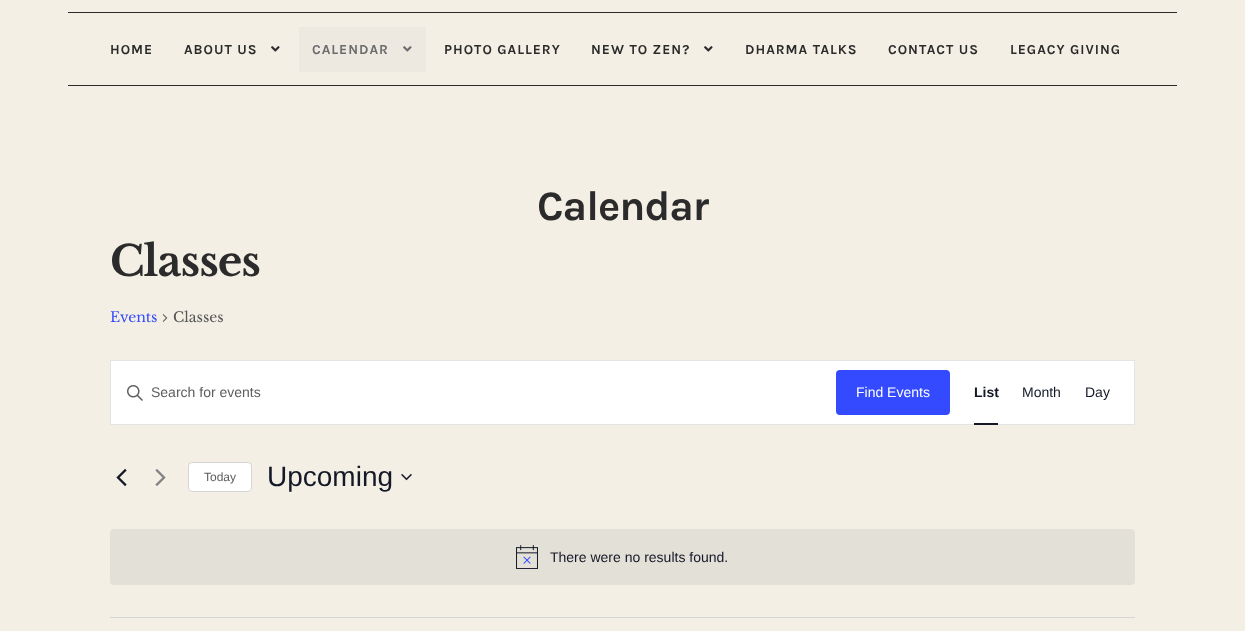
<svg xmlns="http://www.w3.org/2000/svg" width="1245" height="631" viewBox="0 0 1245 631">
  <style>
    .t1 { font: bold 13.75px Karla; letter-spacing: 1px; fill: #2b2b2b; }
    .t2 { font: bold 13.75px Karla; letter-spacing: 1px; fill: #6c6c6c; }
    .t3 { font: bold 42px Karla; letter-spacing: -1px; fill: #2b2b2b; }
    .t4 { font: bold 42px Libre Baskerville; letter-spacing: -1px; fill: #2b2b2b; }
    .t5 { font: 14px Libre Baskerville; fill: #334aff; }
    .t6 { font: 14px Libre Baskerville; fill: #555; }
    .t7 { font: 14px Liberation Sans; fill: #5d5d5d; }
    .t8 { font: 14px Liberation Sans; fill: #fff; }
    .t9 { font: bold 14px Liberation Sans; fill: #141827; }
    .t10 { font: 14px Liberation Sans; fill: #141827; }
    .t11 { font: 12px Liberation Sans; fill: #5d5d5d; }
    .t12 { font: 28px Liberation Sans; fill: #141827; }
  </style>
  <rect width="100%" height="100%" fill="#f3efe5"/>
  <rect x="68" y="12" width="1109" height="1" fill="#2b2b2b"/>
  <rect x="68" y="85" width="1109" height="1" fill="#2b2b2b"/>
  <text x="110" y="54" class="t1">HOME</text>
  <text x="184" y="54" class="t1">ABOUT US</text>
  <image x="271" y="46" width="9" height="6" href="images/1.png"/>
  <rect x="299" y="27" width="127" height="45" fill="#ede9e0"/>
  <text x="312" y="54" class="t2">CALENDAR</text>
  <image x="403" y="46" width="9" height="6" href="images/2.png"/>
  <text x="444" y="54" class="t1">PHOTO GALLERY</text>
  <text x="591" y="54" class="t1">NEW TO ZEN?</text>
  <image x="704" y="46" width="9" height="6" href="images/1.png"/>
  <text x="745" y="54" class="t1">DHARMA TALKS</text>
  <text x="888" y="54" class="t1">CONTACT US</text>
  <text x="1010" y="54" class="t1">LEGACY GIVING</text>
  <text x="537" y="220" class="t3">Calendar</text>
  <text x="110" y="276" class="t4">Classes</text>
  <text x="110" y="322" class="t5">Events</text>
  <image x="162" y="314" width="6" height="8" href="images/3.png"/>
  <text x="173" y="322" class="t6">Classes</text>
  <rect x="110.5" y="360.5" width="1024" height="64" fill="#fff" stroke="#e4e4e4"/>
  <image x="127" y="385" width="16" height="16" href="images/4.png"/>
  <text x="151" y="397" class="t7">Search for events</text>
  <rect x="836" y="370" width="114" height="45" rx="4" fill="#334aff"/>
  <text x="856" y="397" class="t8">Find Events</text>
  <text x="974" y="397" class="t9">List</text>
  <rect x="974" y="423" width="24" height="2" fill="#141827"/>
  <text x="1022" y="397" class="t10">Month</text>
  <text x="1085" y="397" class="t10">Day</text>
  <image x="116" y="468" width="11" height="19" href="images/5.png"/>
  <image x="155" y="469" width="11" height="17" href="images/6.png"/>
  <rect x="188.5" y="462.5" width="63" height="29" rx="3.5" fill="#fff" stroke="#d5d5d5"/>
  <text x="204" y="481" class="t11">Today</text>
  <text x="267" y="486" class="t12">Upcoming</text>
  <image x="401" y="473" width="11" height="8" href="images/7.png"/>
  <rect x="110" y="529" width="1025" height="56" rx="4" fill="#e3e0d8"/>
  <image x="516" y="545" width="22" height="24" href="images/8.png"/>
  <text x="550" y="562" class="t10">There were no results found.</text>
  <rect x="110" y="617" width="1025" height="1" fill="#d5d5d5"/>
</svg>
